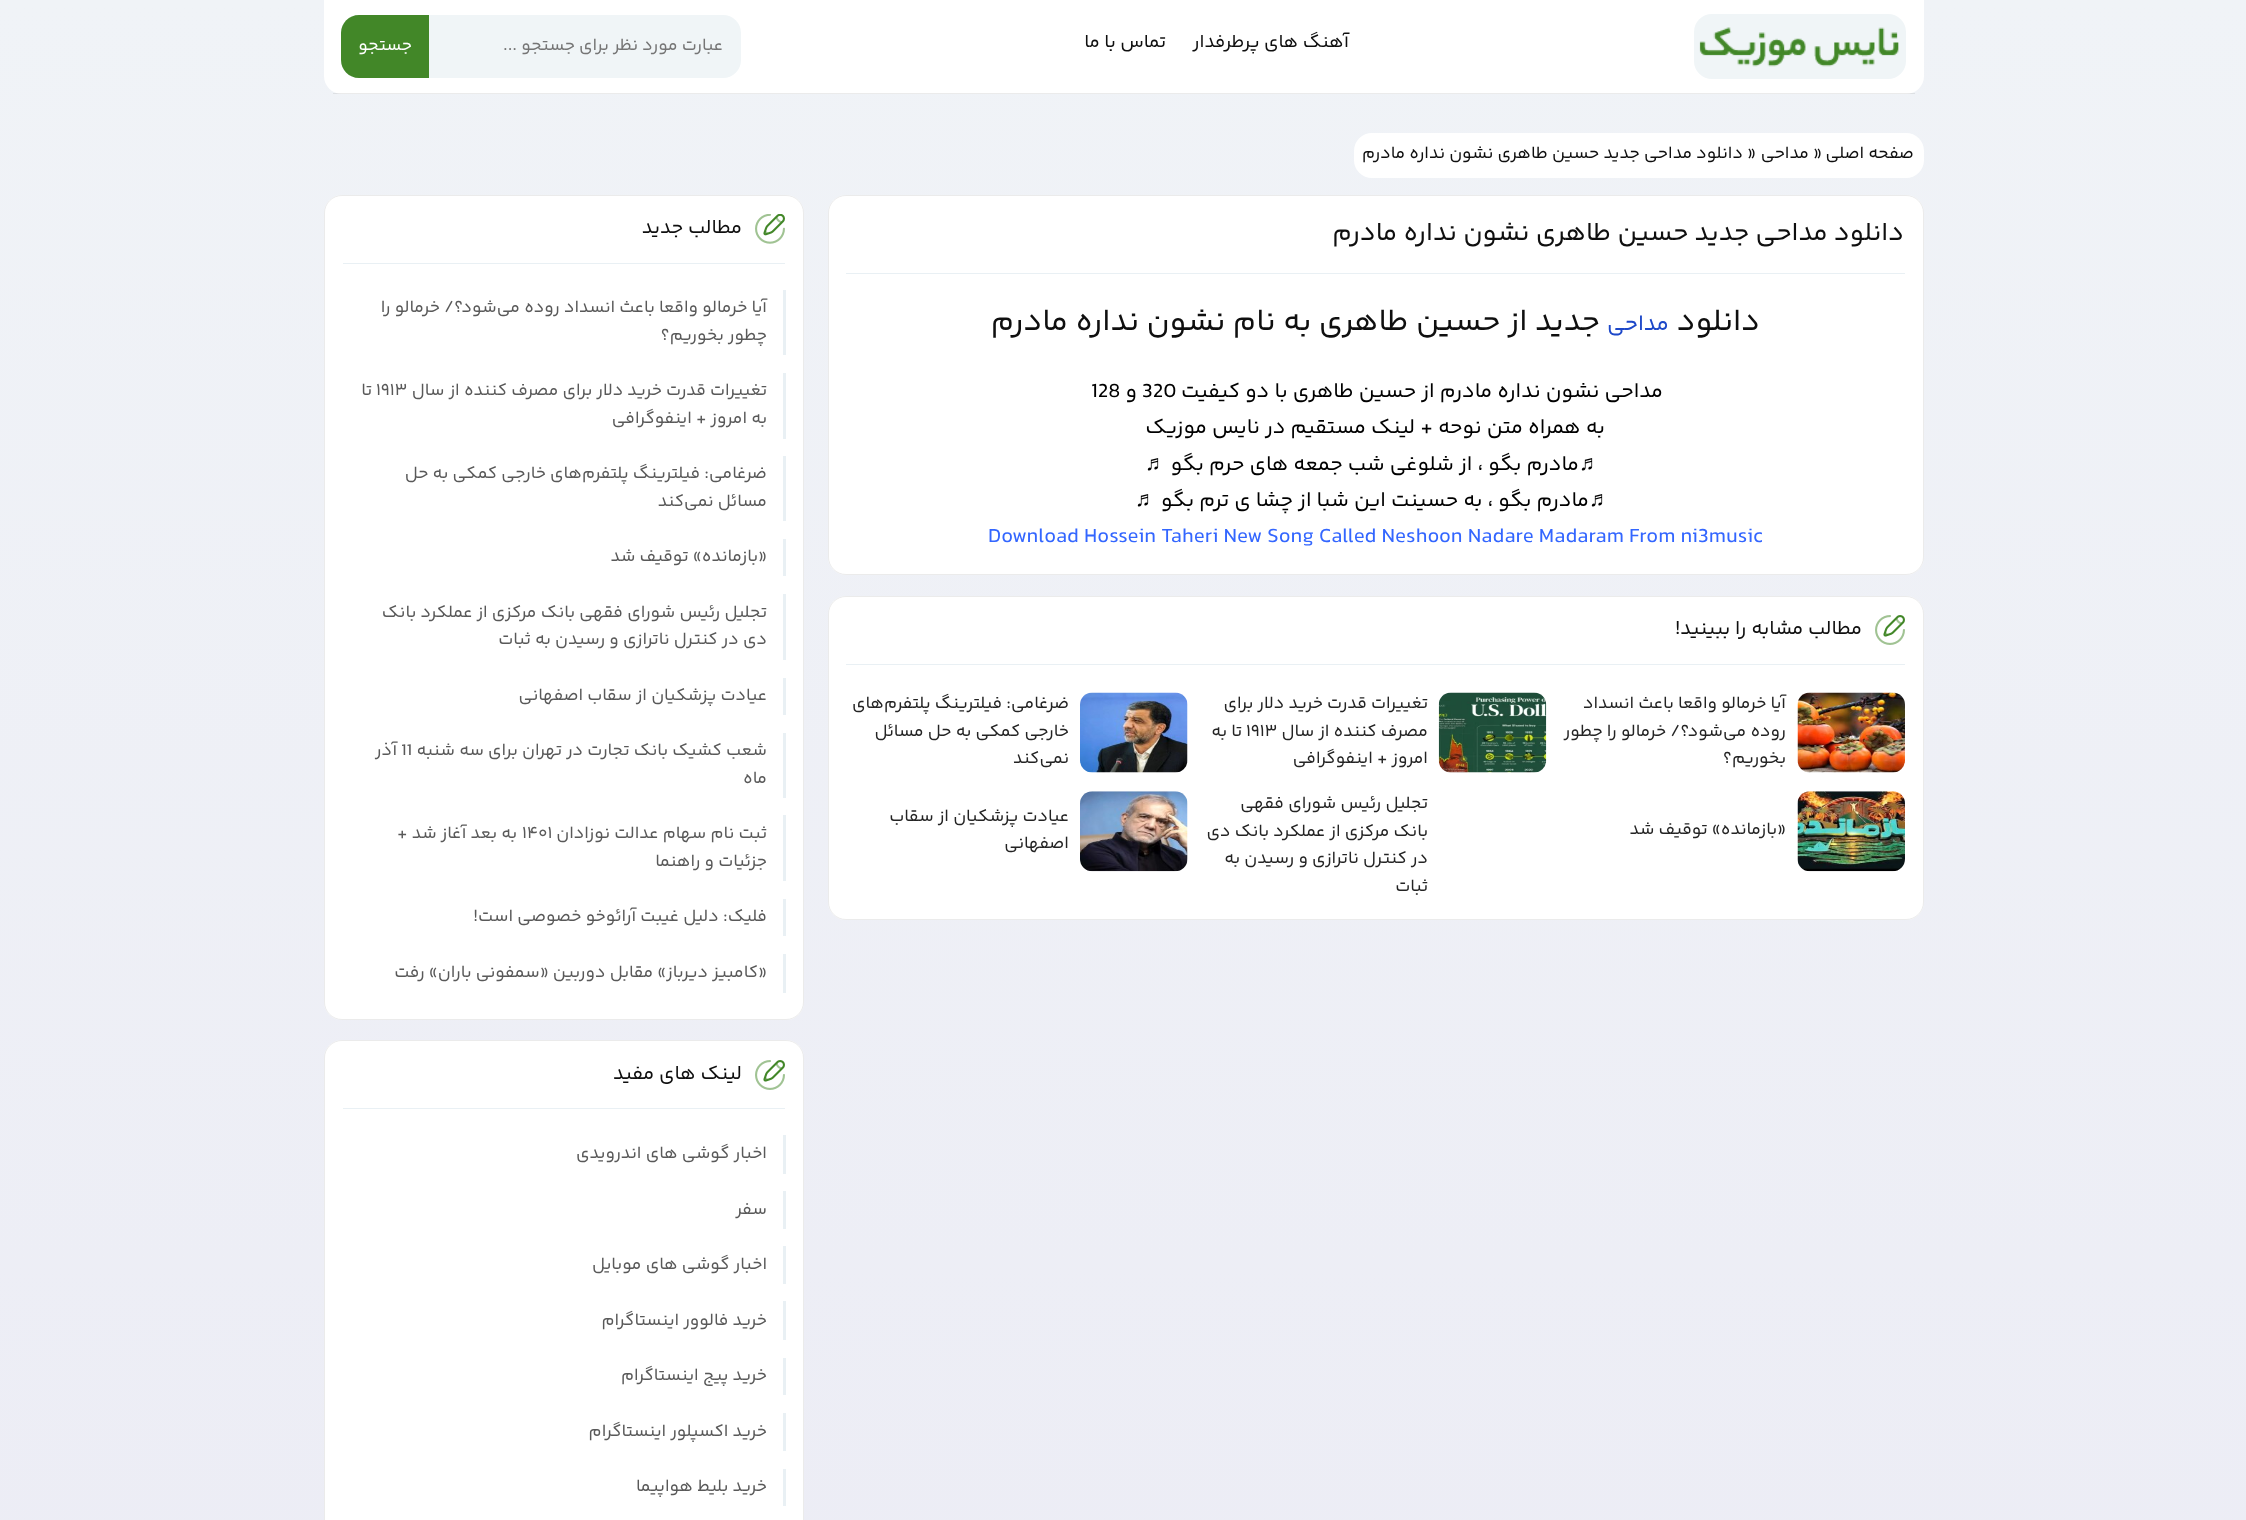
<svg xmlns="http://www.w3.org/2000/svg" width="2246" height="1520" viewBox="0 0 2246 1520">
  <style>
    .t1 { font: 18.75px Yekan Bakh; direction: rtl; fill: #0f0f0f; }
    .t2 { font: 17.5px Yekan Bakh; direction: rtl; fill: #757575; }
    .t3 { font: 17.5px Yekan Bakh; direction: rtl; fill: #fff; }
    .t4 { font: 17.5px Yekan Bakh; direction: rtl; fill: #0f0f0f; }
    .t5 { font: 17.5px Yekan Bakh; fill: #0f0f0f; }
    .t6 { font: 26.25px Yekan Bakh; direction: rtl; fill: #0f0f0f; }
    .t7 { font: 31.25px Yekan Bakh; direction: rtl; fill: #0f0f0f; }
    .t8 { font: 22.5px Yekan Bakh; direction: rtl; fill: #1d48c9; }
    .t9 { font: 21.25px Yekan Bakh; direction: rtl; fill: #000; }
    .t10 { font: 21.25px Yekan Bakh; fill: #000; }
    .t11 { font: 21.25px Liberation Serif; fill: #000; }
    .t12 { font: 21.25px Yekan Bakh; fill: #36f; }
    .t13 { font: 20px Yekan Bakh; direction: rtl; fill: #0f0f0f; }
    .t14 { font: 17.5px Yekan Bakh; direction: rtl; fill: #242424; }
    .t15 { font: 17.5px Yekan Bakh; fill: #242424; }
    .t16 { font: 17.5px Yekan Bakh; direction: rtl; fill: #595959; }
    .t17 { font: 17.5px Yekan Bakh; fill: #595959; }
  </style>
  <defs>
    <linearGradient id="g1" gradientUnits="userSpaceOnUse" x1="1123" y1="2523" x2="1123" y2="0"><stop offset="0" stop-color="#eae9f4"/><stop offset="1" stop-color="#f0f3f7"/></linearGradient>
  </defs>
  <rect width="100%" height="100%" fill="#fff"/>
  <rect x="0" y="0" width="2246" height="1520" fill="url(#g1)"/>
  <path d="M324 0H1924V76C1924 86 1916 94 1906 94H342C332 94 324 86 324 76Z" fill="#fff"/>
  <rect x="333" y="93" width="1582" height="1" fill="#00000014"/>
  <rect x="1694" y="14" width="212" height="65" rx="18" fill="#f0f5f7"/>
  <image x="1699" y="27" width="200" height="40" href="images/1.png"/>
  <text x="1349" y="47" class="t1">آهنگ های پرطرفدار</text>
  <text x="1166" y="47" class="t1">تماس با ما</text>
  <rect x="341" y="15" width="400" height="63" rx="18" fill="#f0f5f7"/>
  <text x="723" y="50" class="t2">عبارت مورد نظر برای جستجو ...</text>
  <path d="M359 15H429V78H359C349 78 341 70 341 60V33C341 23 349 15 359 15Z" fill="#428728"/>
  <text x="412" y="50" class="t3">جستجو</text>
  <rect x="1354" y="133" width="570" height="45" rx="18" fill="#fff"/>
  <text x="1914" y="158" class="t4">صفحه اصلی</text>
  <text x="1813" y="158" class="t5">»</text>
  <text x="1809" y="158" class="t4">مداحی</text>
  <text x="1747" y="158" class="t5">»</text>
  <text x="1743" y="158" class="t4">دانلود مداحی جدید حسین طاهری نشون نداره مادرم</text>
  <rect x="828" y="195" width="1096" height="380" rx="18" fill="#fff"/>
  <rect x="828.5" y="195.5" width="1095" height="379" rx="17.5" fill="none" stroke="#00000014"/>
  <rect x="846" y="273" width="1059" height="1" fill="#e9f0f4"/>
  <text x="1904" y="240" class="t6">دانلود مداحی جدید حسین طاهری نشون نداره مادرم</text>
  <text x="1760" y="330" class="t7">دانلود</text>
  <text x="1669" y="330" class="t8">مداحی</text>
  <text x="1600" y="330" class="t7">جدید از حسین طاهری به نام نشون نداره مادرم</text>
  <text x="1663" y="397" class="t9">مداحی نشون نداره مادرم از حسین طاهری با دو کیفیت</text>
  <text x="1142" y="397" class="t10">320</text>
  <text x="1137" y="397" class="t9">و</text>
  <text x="1091" y="397" class="t10">128</text>
  <text x="1605" y="433" class="t9">به همراه متن نوحه + لینک مستقیم در نایس موزیک</text>
  <text x="1579" y="470" class="t11">♬</text>
  <text x="1579" y="470" class="t9">مادرم بگو ، از شلوغی شب جمعه های حرم بگو</text>
  <text x="1145" y="470" class="t11">♬</text>
  <text x="1589" y="506" class="t11">♬</text>
  <text x="1589" y="506" class="t9">مادرم بگو ، به حسینت این شبا از چشا ی ترم بگو</text>
  <text x="1135" y="506" class="t11">♬</text>
  <text x="988" y="542" class="t12">Download Hossein Taheri New Song Called Neshoon Nadare Madaram From ni3music</text>
  <rect x="828" y="596" width="1096" height="324" rx="18" fill="#fff"/>
  <rect x="828.5" y="596.5" width="1095" height="323" rx="17.5" fill="none" stroke="#00000014"/>
  <rect x="846" y="664" width="1059" height="1" fill="#e9f0f4"/>
  <image x="1875" y="615" width="30" height="30" href="images/2.png"/>
  <text x="1862" y="634" class="t13">مطالب مشابه را ببینید!</text>
  <image x="1797" y="692" width="108" height="81" href="images/3.png"/>
  <text x="1786" y="708" class="t14">آیا خرمالو واقعا باعث انسداد</text>
  <text x="1786" y="736" class="t14">روده می‌شود؟/ خرمالو را چطور</text>
  <text x="1786" y="763" class="t14">بخوریم؟</text>
  <image x="1438" y="692" width="109" height="81" href="images/4.png"/>
  <text x="1428" y="708" class="t14">تغییرات قدرت خرید دلار برای</text>
  <text x="1428" y="736" class="t14">مصرف کننده از سال</text>
  <text x="1246" y="736" class="t15">۱۹۱۳</text>
  <text x="1242" y="736" class="t14">تا به</text>
  <text x="1428" y="763" class="t14">امروز + اینفوگرافی</text>
  <image x="1080" y="692" width="108" height="81" href="images/5.png"/>
  <text x="1069" y="708" class="t14">ضرغامی: فیلترینگ پلتفرم‌های</text>
  <text x="1069" y="736" class="t14">خارجی کمکی به حل مسائل</text>
  <text x="1069" y="763" class="t14">نمی‌کند</text>
  <image x="1797" y="791" width="108" height="81" href="images/6.png"/>
  <text x="1786" y="834" class="t14">«بازمانده» توقیف شد</text>
  <text x="1428" y="808" class="t14">تجلیل رئیس شورای فقهی</text>
  <text x="1428" y="836" class="t14">بانک مرکزی از عملکرد بانک دی</text>
  <text x="1428" y="863" class="t14">در کنترل ناترازی و رسیدن به</text>
  <text x="1428" y="891" class="t14">ثبات</text>
  <image x="1080" y="791" width="108" height="81" href="images/7.png"/>
  <text x="1069" y="821" class="t14">عیادت پزشکیان از سقاب</text>
  <text x="1069" y="848" class="t14">اصفهانی</text>
  <rect x="324" y="195" width="480" height="825" rx="18" fill="#fff"/>
  <rect x="324.5" y="195.5" width="479" height="824" rx="17.5" fill="none" stroke="#00000014"/>
  <rect x="343" y="263" width="442" height="1" fill="#e9f0f4"/>
  <image x="755" y="214" width="30" height="30" href="images/8.png"/>
  <text x="742" y="233" class="t13">مطالب جدید</text>
  <rect x="783" y="290" width="3" height="65" fill="#e9f0f4"/>
  <text x="767" y="312" class="t16">آیا خرمالو واقعا باعث انسداد روده می‌شود؟/ خرمالو را</text>
  <text x="767" y="340" class="t16">چطور بخوریم؟</text>
  <rect x="783" y="373" width="3" height="66" fill="#e9f0f4"/>
  <text x="767" y="395" class="t16">تغییرات قدرت خرید دلار برای مصرف کننده از سال</text>
  <text x="376" y="395" class="t17">۱۹۱۳</text>
  <text x="372" y="395" class="t16">تا</text>
  <text x="767" y="423" class="t16">به امروز + اینفوگرافی</text>
  <rect x="783" y="456" width="3" height="65" fill="#e9f0f4"/>
  <text x="767" y="478" class="t16">ضرغامی: فیلترینگ پلتفرم‌های خارجی کمکی به حل</text>
  <text x="767" y="506" class="t16">مسائل نمی‌کند</text>
  <rect x="783" y="539" width="3" height="37" fill="#e9f0f4"/>
  <text x="767" y="561" class="t16">«بازمانده» توقیف شد</text>
  <rect x="783" y="594" width="3" height="66" fill="#e9f0f4"/>
  <text x="767" y="617" class="t16">تجلیل رئیس شورای فقهی بانک مرکزی از عملکرد بانک</text>
  <text x="767" y="644" class="t16">دی در کنترل ناترازی و رسیدن به ثبات</text>
  <rect x="783" y="678" width="3" height="37" fill="#e9f0f4"/>
  <text x="767" y="700" class="t16">عیادت پزشکیان از سقاب اصفهانی</text>
  <rect x="783" y="733" width="3" height="65" fill="#e9f0f4"/>
  <text x="767" y="755" class="t16">شعب کشیک بانک تجارت در تهران برای سه شنبه</text>
  <text x="401" y="755" class="t17">11</text>
  <text x="397" y="755" class="t16">آذر</text>
  <text x="767" y="783" class="t16">ماه</text>
  <rect x="783" y="815" width="3" height="66" fill="#e9f0f4"/>
  <text x="767" y="838" class="t16">ثبت نام سهام عدالت نوزادان</text>
  <text x="522" y="838" class="t17">۱۴۰۱</text>
  <text x="517" y="838" class="t16">به بعد آغاز شد +</text>
  <text x="767" y="866" class="t16">جزئیات و راهنما</text>
  <rect x="783" y="899" width="3" height="37" fill="#e9f0f4"/>
  <text x="767" y="921" class="t16">فلیک: دلیل غیبت آرائوخو خصوصی است!</text>
  <rect x="783" y="954" width="3" height="39" fill="#e9f0f4"/>
  <text x="767" y="977" class="t16">«کامبیز دیرباز» مقابل دوربین «سمفونی باران» رفت</text>
  <rect x="324" y="1040" width="480" height="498" rx="18" fill="#fff"/>
  <rect x="324.5" y="1040.5" width="479" height="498" rx="17.5" fill="none" stroke="#00000014"/>
  <rect x="343" y="1108" width="442" height="1" fill="#e9f0f4"/>
  <image x="755" y="1060" width="30" height="30" href="images/2.png"/>
  <text x="742" y="1079" class="t13">لینک های مفید</text>
  <rect x="783" y="1135" width="3" height="39" fill="#e9f0f4"/>
  <text x="767" y="1158" class="t16">اخبار گوشی های اندرویدی</text>
  <rect x="783" y="1191" width="3" height="38" fill="#e9f0f4"/>
  <text x="767" y="1214" class="t16">سفر</text>
  <rect x="783" y="1246" width="3" height="38" fill="#e9f0f4"/>
  <text x="767" y="1269" class="t16">اخبار گوشی های موبایل</text>
  <rect x="783" y="1301" width="3" height="39" fill="#e9f0f4"/>
  <text x="767" y="1325" class="t16">خرید فالوور اینستاگرام</text>
  <rect x="783" y="1358" width="3" height="37" fill="#e9f0f4"/>
  <text x="767" y="1380" class="t16">خرید پیج اینستاگرام</text>
  <rect x="783" y="1413" width="3" height="38" fill="#e9f0f4"/>
  <text x="767" y="1436" class="t16">خرید اکسپلور اینستاگرام</text>
  <rect x="783" y="1469" width="3" height="37" fill="#e9f0f4"/>
  <text x="767" y="1491" class="t16">خرید بلیط هواپیما</text>
</svg>
